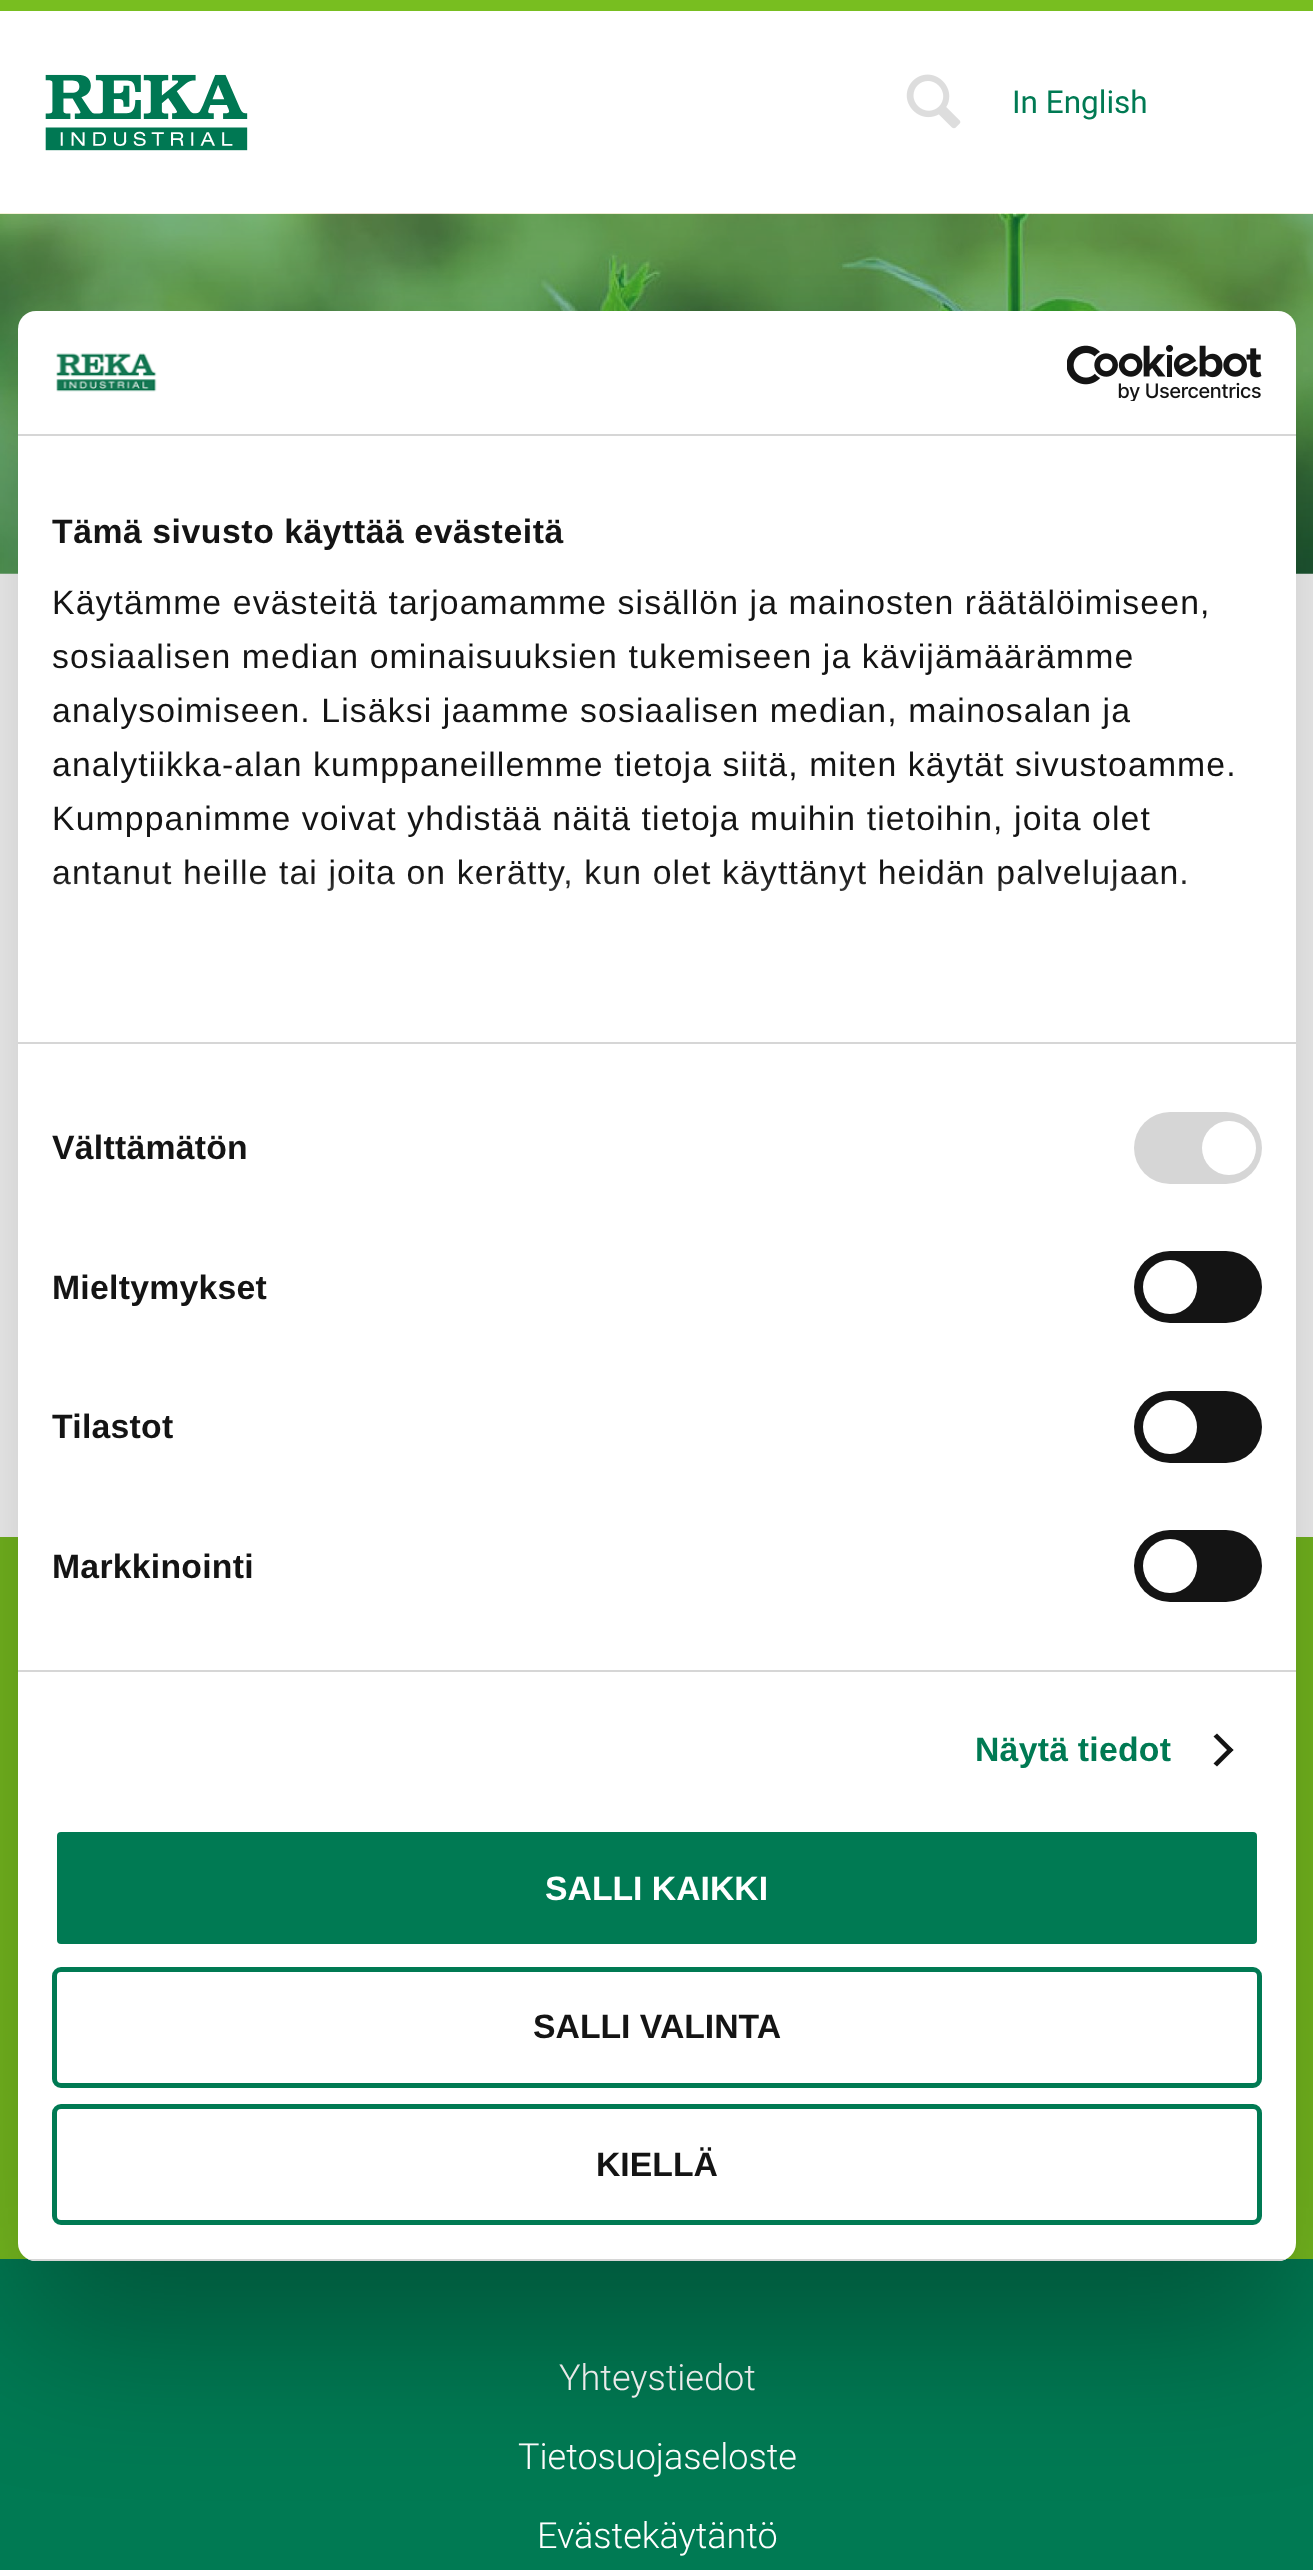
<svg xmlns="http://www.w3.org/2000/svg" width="1313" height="2570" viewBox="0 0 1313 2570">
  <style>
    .t1 { font: 31.5px Roboto; fill: #007a53; }
    .t2 { font: 300 36px Roboto; fill: #fff; }
    .t3 { font: bold 33.75px Liberation Sans; letter-spacing: 0.55px; fill: #141414; }
    .t4 { font: 33.75px Liberation Sans; letter-spacing: 1.12px; fill: #141414; }
    .t5 { font: bold 33.75px Liberation Sans; letter-spacing: 0.25px; fill: #141414; }
    .t6 { font: bold 33.75px Liberation Sans; letter-spacing: 0.25px; fill: #007a53; }
    .t7 { font: bold 33.75px Liberation Sans; fill: #fff; }
    .t8 { font: bold 33.75px Liberation Sans; fill: #141414; }
  </style>
  <defs>
    <linearGradient id="g1" gradientUnits="userSpaceOnUse" x1="642" y1="1042" x2="642" y2="874"><stop offset="0" stop-color="#fff"/><stop offset="0.5" stop-color="#fff" stop-opacity="0.8"/><stop offset="1" stop-color="#fff" stop-opacity="0"/></linearGradient>
    <clipPath id="clip1"><rect x="18" y="311" width="1278" height="1950" rx="18"/></clipPath>
  </defs>
  <rect width="100%" height="100%" fill="#fff"/>
  <rect x="0" y="0" width="1313" height="11" fill="#78be20"/>
  <image x="45" y="74" width="203" height="77" href="images/1.png"/>
  <image x="906" y="74" width="55" height="55" href="images/2.png"/>
  <text x="1012" y="113" class="t1">In English</text>
  <image x="0" y="213" width="1313" height="361" href="images/3.png"/>
  <rect x="0" y="1537" width="1313" height="722" fill="#78be20"/>
  <rect x="0" y="2259" width="1313" height="311" fill="#007a53"/>
  <text x="559" y="2390" class="t2">Yhteystiedot</text>
  <text x="518" y="2469" class="t2">Tietosuojaseloste</text>
  <text x="537" y="2548" class="t2">Evästekäytäntö</text>
  <rect x="18" y="383" width="1278" height="1950" rx="18" fill="#0000004d" filter="blur(76.5px)"/>
  <rect x="18" y="311" width="1278" height="1950" rx="18" fill="#fff"/>
  <rect x="18" y="434" width="1278" height="2" fill="#d6d6d6"/>
  <image x="56" y="353" width="101" height="39" href="images/4.png"/>
  <image x="1067" y="344" width="195" height="57" href="images/5.png"/>
  <rect x="18" y="1042" width="1278" height="2" fill="#d6d6d6"/>
  <text x="52" y="543" class="t3">Tämä sivusto käyttää evästeitä</text>
  <text x="52" y="614" class="t4">Käytämme evästeitä tarjoamamme sisällön ja mainosten räätälöimiseen,</text>
  <text x="52" y="668" class="t4">sosiaalisen median ominaisuuksien tukemiseen ja kävijämäärämme</text>
  <text x="52" y="722" class="t4">analysoimiseen. Lisäksi jaamme sosiaalisen median, mainosalan ja</text>
  <text x="52" y="776" class="t4">analytiikka-alan kumppaneillemme tietoja siitä, miten käytät sivustoamme.</text>
  <text x="52" y="830" class="t4">Kumppanimme voivat yhdistää näitä tietoja muihin tietoihin, joita olet</text>
  <text x="52" y="884" class="t4">antanut heille tai joita on kerätty, kun olet käyttänyt heidän palvelujaan.</text>
  <rect x="53" y="876" width="1133" height="15" fill="url(#g1)"/>
  <rect x="18" y="1670" width="1278" height="2" fill="#d6d6d6"/>
  <text x="52" y="1159" class="t5">Välttämätön</text>
  <rect x="1134" y="1112" width="128" height="72" rx="36" fill="#d6d6d6"/>
  <circle cx="1229" cy="1148" r="27" fill="#fff"/>
  <text x="52" y="1299" class="t5">Mieltymykset</text>
  <rect x="1134" y="1251" width="128" height="72" rx="36" fill="#141414"/>
  <circle cx="1170" cy="1287" r="27" fill="#fff"/>
  <text x="52" y="1438" class="t5">Tilastot</text>
  <rect x="1134" y="1391" width="128" height="72" rx="36" fill="#141414"/>
  <circle cx="1170" cy="1427" r="27" fill="#fff"/>
  <text x="52" y="1578" class="t5">Markkinointi</text>
  <rect x="1134" y="1530" width="128" height="72" rx="36" fill="#141414"/>
  <circle cx="1170" cy="1566" r="27" fill="#fff"/>
  <text x="975" y="1761" class="t6">Näytä tiedot</text>
  <path d="M1217 1733.5L1233.5 1750L1230 1753L1213.5 1736.5Z" fill="#141414"/>
  <path d="M1230 1747L1233.5 1750L1217 1766.5L1213.5 1763.5Z" fill="#141414"/>
  <g clip-path="url(#clip1)">
    <rect x="28" y="2259" width="1258" height="2" fill="#d6d6d6"/>
  </g>
  <rect x="54.5" y="1829.5" width="1205" height="117" rx="6.5" fill="#007a53" stroke="#fff" stroke-width="5"/>
  <text x="545" y="1900" class="t7">SALLI KAIKKI</text>
  <rect x="54.5" y="1969.5" width="1205" height="116" rx="6.5" fill="none" stroke="#007a53" stroke-width="5"/>
  <text x="533" y="2038" class="t8">SALLI VALINTA</text>
  <rect x="54.5" y="2106.5" width="1205" height="116" rx="6.5" fill="none" stroke="#007a53" stroke-width="5"/>
  <text x="596" y="2176" class="t8">KIELLÄ</text>
</svg>
